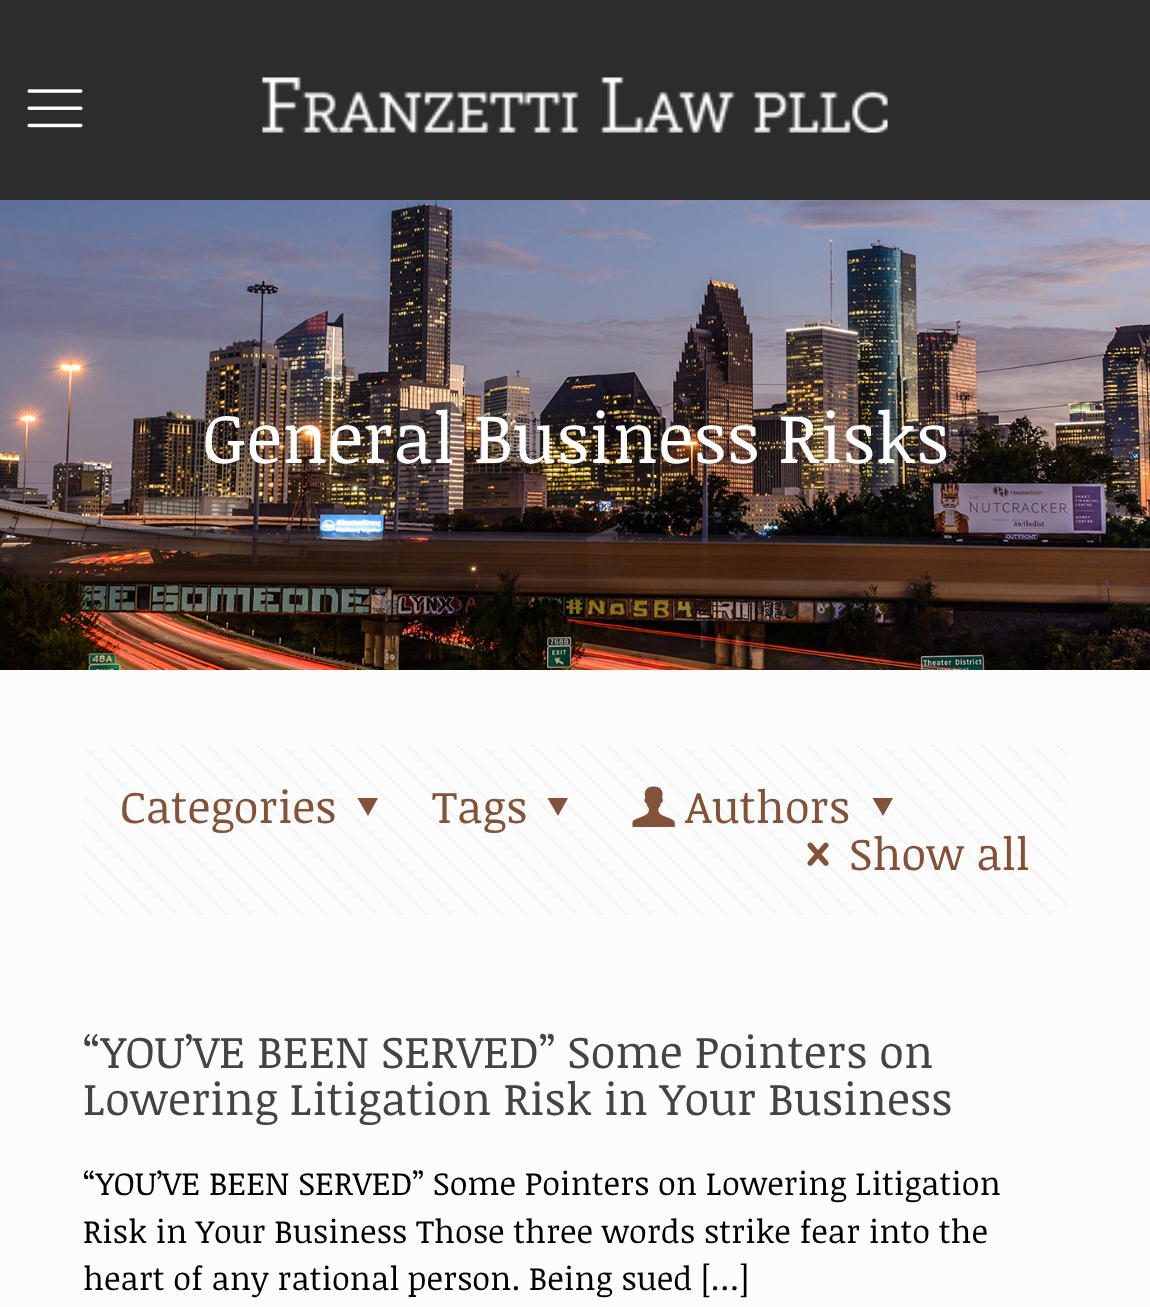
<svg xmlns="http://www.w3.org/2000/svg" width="1150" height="1307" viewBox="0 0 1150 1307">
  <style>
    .t1 { font: 70px Noticia Text; fill: #fff; }
    .t2 { font: 45px Noticia Text; fill: #825339; }
    .t3 { font: 45px Noticia Text; fill: #444; }
    .t4 { font: 32.5px Noticia Text; fill: #000; }
  </style>
  <rect width="100%" height="100%" fill="#fcfcfc"/>
  <rect x="0" y="0" width="1150" height="200" fill="#2c2c2c"/>
  <image x="27" y="89" width="56" height="39" href="images/1.png"/>
  <image x="262" y="77" width="626" height="56" href="images/2.png"/>
  <image x="0" y="200" width="1150" height="470" href="images/3.png"/>
  <text x="202" y="463" class="t1">General Business Risks</text>
  <image x="83" y="745" width="984" height="170" href="images/4.png"/>
  <text x="120" y="823" class="t2">Categories</text>
  <path d="M378 798L368 816L357.5 798Z" fill="#825339"/>
  <text x="432" y="823" class="t2">Tags</text>
  <path d="M568 798L558 816L547.5 798Z" fill="#825339"/>
  <image x="632" y="786" width="43" height="41" href="images/5.png"/>
  <text x="685" y="823" class="t2">Authors</text>
  <path d="M893 798L883 816L872.5 798Z" fill="#825339"/>
  <image x="807" y="842" width="22" height="24" href="images/6.png"/>
  <text x="849" y="870" class="t2">Show all</text>
  <text x="83" y="1068" class="t3">“YOU’VE BEEN SERVED” Some Pointers on</text>
  <text x="83" y="1115" class="t3">Lowering Litigation Risk in Your Business</text>
  <text x="83" y="1195" class="t4">“YOU’VE BEEN SERVED” Some Pointers on Lowering Litigation</text>
  <text x="83" y="1243" class="t4">Risk in Your Business Those three words strike fear into the</text>
  <text x="83" y="1290" class="t4">heart of any rational person. Being sued […]</text>
</svg>
